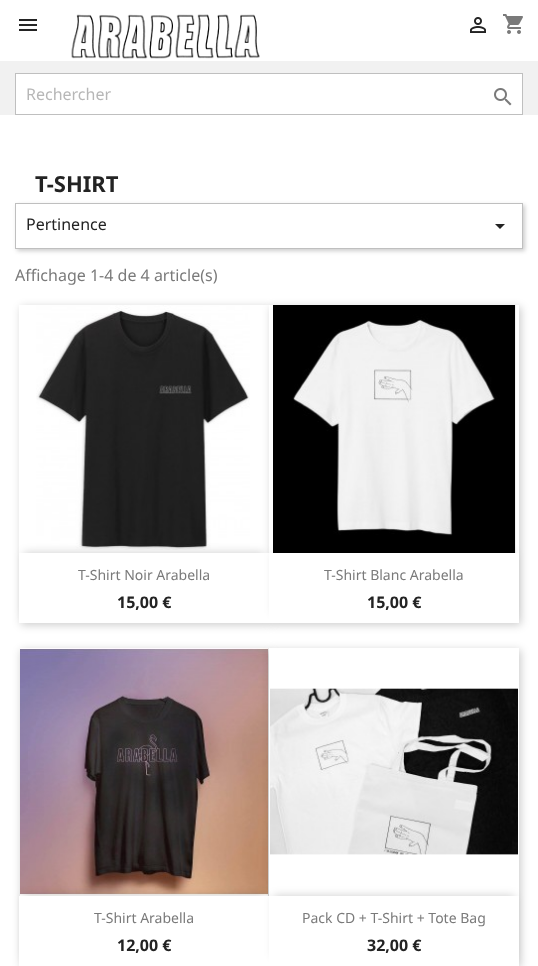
<svg xmlns="http://www.w3.org/2000/svg" width="538" height="966" viewBox="0 0 538 966">
  <style>
    .t1 { font: 16px Noto Sans; fill: #b7b7b7; }
    .t2 { font: bold 22px Noto Sans; fill: #232323; }
    .t3 { font: 16px Noto Sans; fill: #232323; }
    .t4 { font: 16px Noto Sans; fill: #7a7a7a; }
    .t5 { font: 14px Noto Sans; fill: #7a7a7a; }
    .t6 { font: bold 16px Noto Sans; fill: #232323; }
  </style>
  <defs>
    <clipPath id="clip1"><path d="M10 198H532V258H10ZM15 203H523V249H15Z" clip-rule="evenodd"/></clipPath>
    <clipPath id="clip2"><path d="M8 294H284V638H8ZM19 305H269V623H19Z" clip-rule="evenodd"/></clipPath>
  </defs>
  <rect width="100%" height="100%" fill="#fff"/>
  <rect x="0" y="61" width="538" height="54" fill="#f1f1f1"/>
  <image x="19" y="19" width="18" height="12" href="images/1.png"/>
  <image x="71" y="14" width="189" height="45" href="images/2.png"/>
  <image x="470" y="17" width="16" height="16" href="images/3.png"/>
  <image x="503" y="14" width="20" height="20" href="images/4.png"/>
  <rect x="15.5" y="73.5" width="507" height="41" fill="#fff" stroke="#bfbfbf"/>
  <text x="26" y="100" class="t1">Rechercher</text>
  <image x="494" y="88" width="18" height="18" href="images/5.png"/>
  <text x="35" y="192" class="t2">T-SHIRT</text>
  <g clip-path="url(#clip1)">
    <rect x="17" y="205" width="508" height="46" fill="#00000033" filter="blur(2px)"/>
  </g>
  <rect x="15.5" y="203.5" width="507" height="45" fill="none" stroke="#bfbfbf"/>
  <text x="26" y="230" class="t3">Pertinence</text>
  <path d="M495 224H505L500 229Z" fill="#232323"/>
  <text x="15" y="281" class="t4">Affichage 1-4 de 4 article(s)</text>
  <g clip-path="url(#clip2)">
    <rect x="21" y="307" width="250" height="318" fill="#00000033" filter="blur(4px)"/>
  </g>
  <image x="36" y="305" width="214" height="245" href="images/6.png"/>
  <rect x="271" y="307" width="250" height="318" fill="#00000033" filter="blur(4px)"/>
  <rect x="269" y="305" width="250" height="248" fill="#fff"/>
  <image x="273" y="305" width="243" height="248" href="images/7.png"/>
  <rect x="24" y="553" width="240" height="60" fill="#00000033" filter="blur(5px)"/>
  <rect x="19" y="553" width="250" height="70" fill="#fff"/>
  <text x="78" y="580" class="t5">T-Shirt Noir Arabella</text>
  <text x="117" y="608" class="t6">15,00 €</text>
  <rect x="274" y="553" width="240" height="60" fill="#00000033" filter="blur(5px)"/>
  <rect x="269" y="553" width="250" height="70" fill="#fff"/>
  <text x="324" y="580" class="t5">T-Shirt Blanc Arabella</text>
  <text x="367" y="608" class="t6">15,00 €</text>
  <rect x="21" y="650" width="250" height="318" fill="#00000033" filter="blur(4px)"/>
  <image x="20" y="648" width="248" height="248" href="images/8.png"/>
  <rect x="271" y="650" width="250" height="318" fill="#00000033" filter="blur(4px)"/>
  <rect x="269" y="648" width="250" height="248" fill="#fff"/>
  <rect x="24" y="896" width="240" height="60" fill="#00000033" filter="blur(5px)"/>
  <rect x="19" y="896" width="250" height="70" fill="#fff"/>
  <text x="94" y="923" class="t5">T-Shirt Arabella</text>
  <text x="117" y="951" class="t6">12,00 €</text>
  <image x="270" y="688" width="248" height="167" href="images/9.png"/>
  <rect x="274" y="896" width="240" height="60" fill="#00000033" filter="blur(5px)"/>
  <rect x="269" y="896" width="250" height="70" fill="#fff"/>
  <text x="302" y="923" class="t5">Pack CD + T-Shirt + Tote Bag</text>
  <text x="367" y="951" class="t6">32,00 €</text>
</svg>
